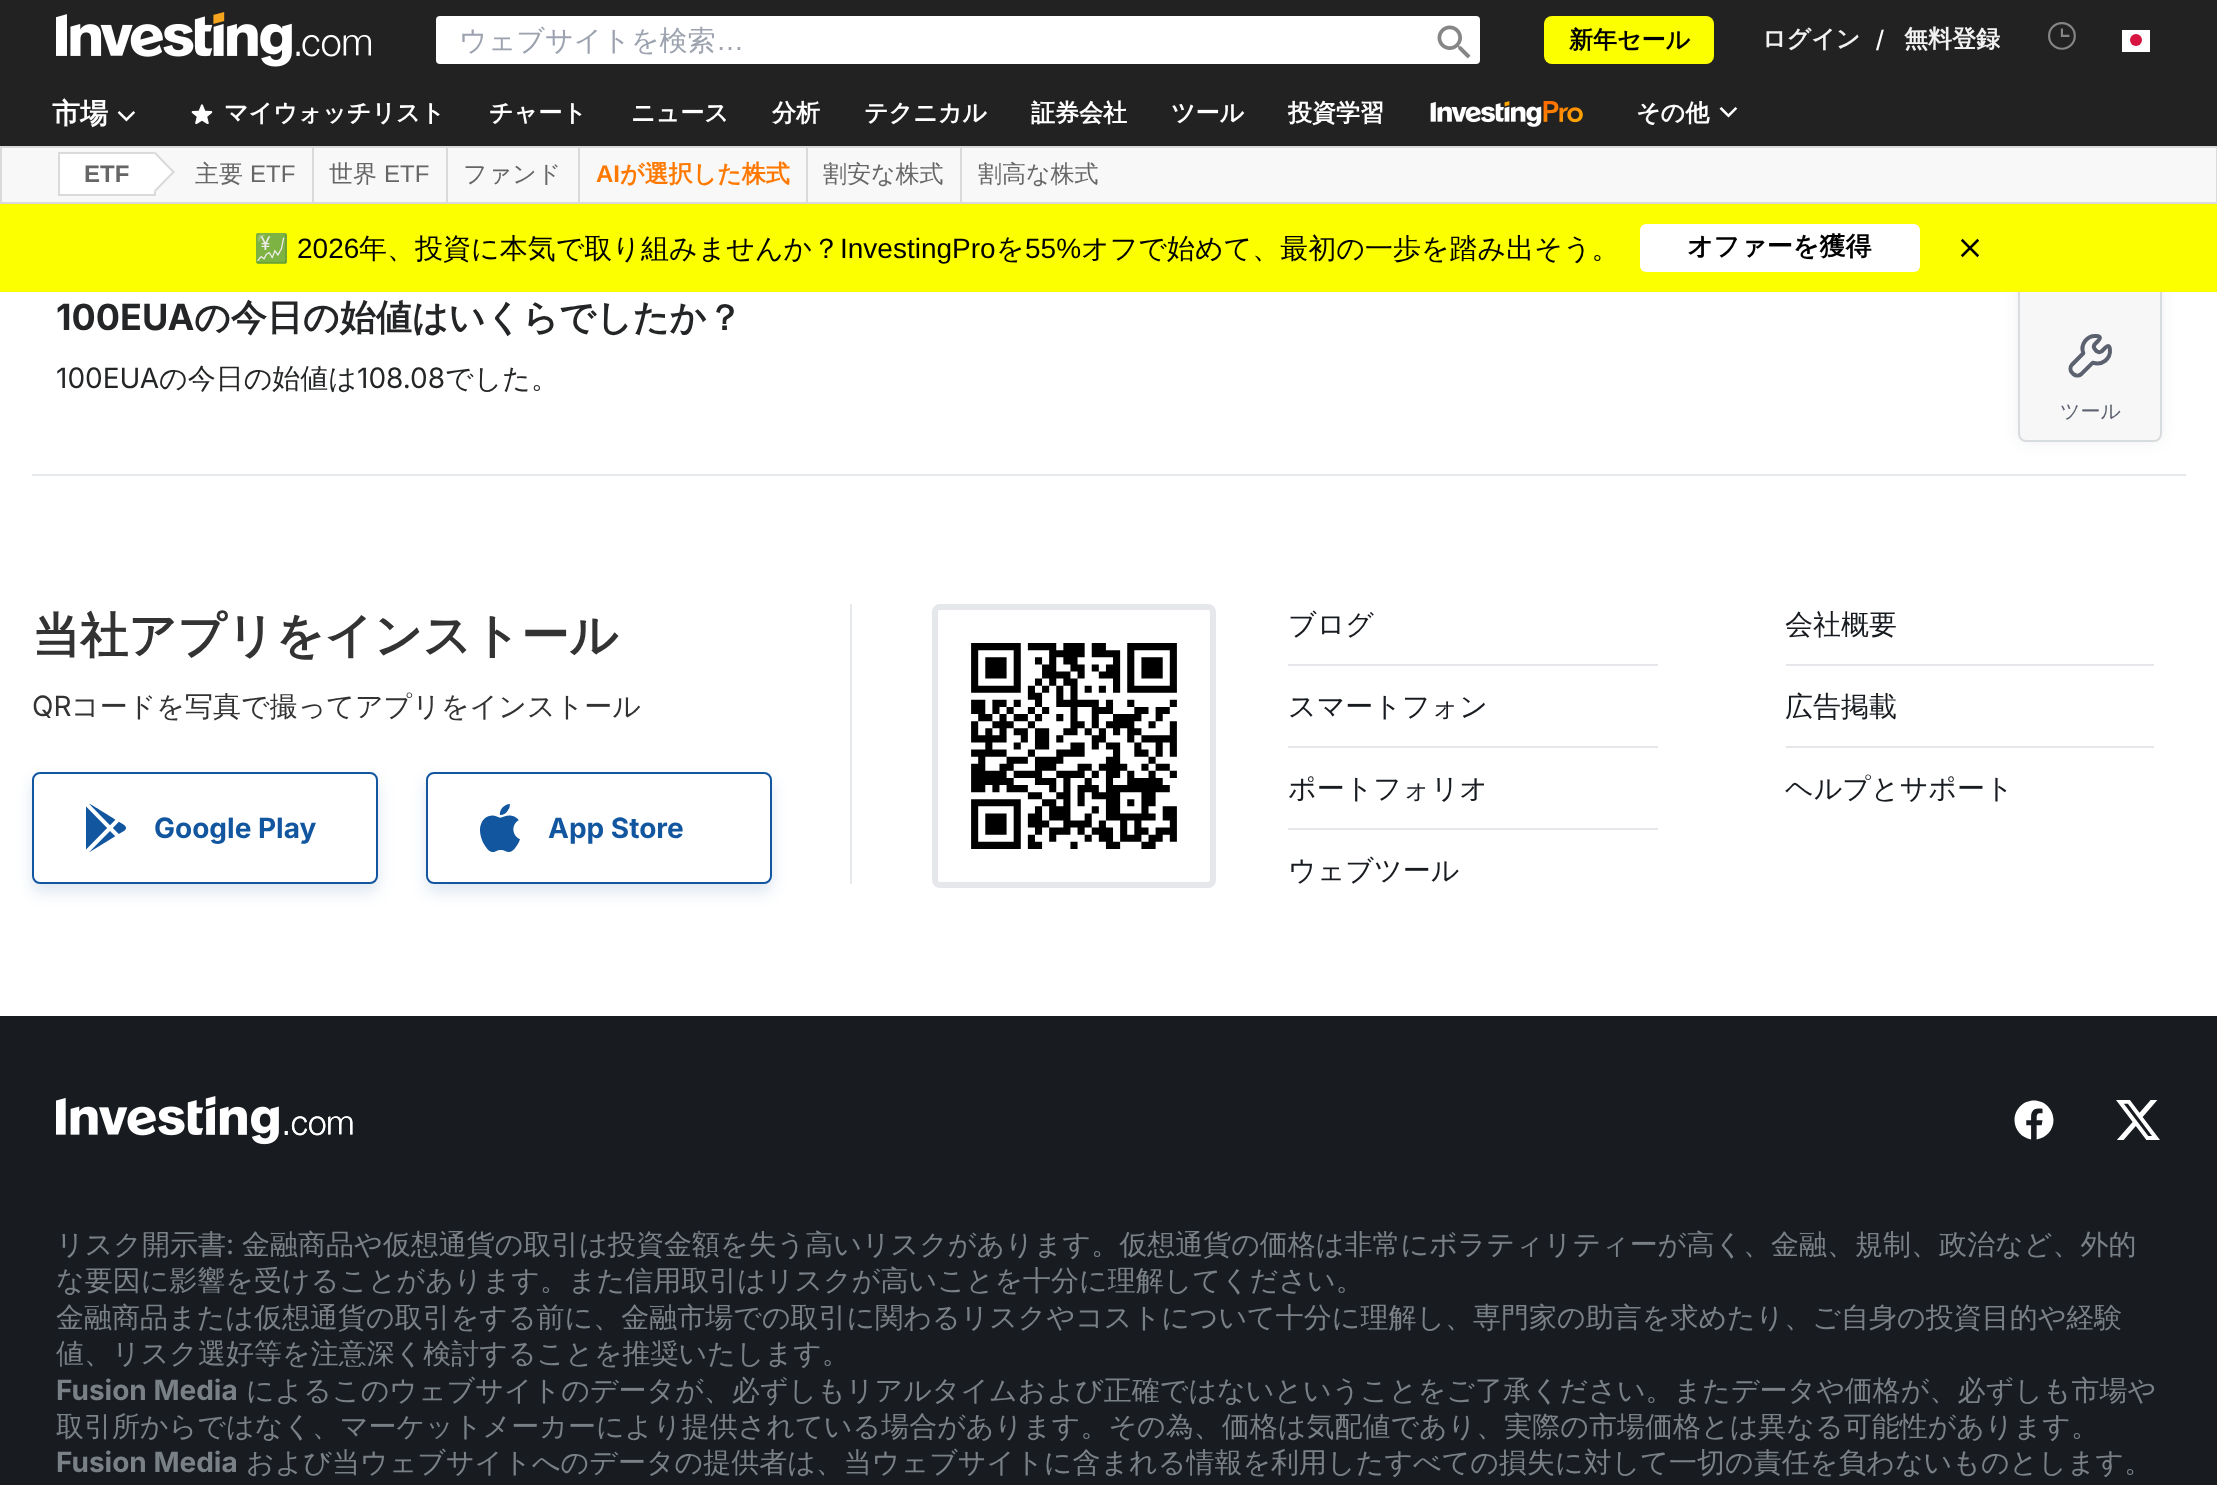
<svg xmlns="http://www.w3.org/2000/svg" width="2217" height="1485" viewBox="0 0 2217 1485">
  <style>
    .t1 { font: 500 28px WenQuanYi Zen Hei; fill: #9ca3af; }
    .t2 { font: 28px Liberation Sans; fill: #9ca3af; }
    .t3 { font: bold 24px WenQuanYi Zen Hei; fill: #000; }
    .t4 { font: bold 24px WenQuanYi Zen Hei; fill: #f2f2f2; }
    .t5 { font: 28px Liberation Sans; fill: #fff; }
    .t6 { font: bold 28px WenQuanYi Zen Hei; fill: #fff; }
    .t7 { font: bold 24px WenQuanYi Zen Hei; fill: #fff; }
    .t8 { font: bold 24px Liberation Sans; fill: #666; }
    .t9 { font: 500 24px WenQuanYi Zen Hei; fill: #666; }
    .t10 { font: 24px Liberation Sans; fill: #666; }
    .t11 { font: bold 24px Liberation Sans; fill: #ff7901; }
    .t12 { font: bold 24px WenQuanYi Zen Hei; fill: #ff7901; }
    .t13 { font: 28px Noto Color Emoji; fill: #000; }
    .t14 { font: 28px Liberation Sans; fill: #000; }
    .t15 { font: 500 28px WenQuanYi Zen Hei; fill: #000; }
    .t16 { font: bold 26px WenQuanYi Zen Hei; fill: #000; }
    .t17 { font: bold 36px Inter; fill: #232526; }
    .t18 { font: bold 36px WenQuanYi Zen Hei; fill: #232526; }
    .t19 { font: 28px Inter; fill: #232526; }
    .t20 { font: 500 28px WenQuanYi Zen Hei; fill: #232526; }
    .t21 { font: 500 20px WenQuanYi Zen Hei; fill: #5b616e; }
    .t22 { font: bold 48px WenQuanYi Zen Hei; fill: #333; }
    .t23 { font: 28px Inter; fill: #333; }
    .t24 { font: 500 28px WenQuanYi Zen Hei; fill: #333; }
    .t25 { font: bold 28px Inter; fill: #1256a0; }
    .t26 { font: 500 28px WenQuanYi Zen Hei; fill: #181c21; }
    .t27 { font: 500 28px WenQuanYi Zen Hei; fill: #798187; }
    .t28 { font: 28px Inter; fill: #798187; }
    .t29 { font: bold 28px Inter; fill: #798187; }
  </style>
  <rect width="100%" height="100%" fill="#fff"/>
  <rect x="2018" y="-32" width="144" height="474" rx="8" fill="#23252612" filter="blur(8px)"/>
  <rect x="2019" y="-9" width="142" height="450" rx="7" fill="#f7f7f8" stroke="#d9dcdf" stroke-width="2"/>
  <rect x="0" y="0" width="2217" height="146" fill="#222"/>
  <image x="56" y="12" width="315" height="55" href="images/1.png"/>
  <rect x="436" y="16" width="1044" height="48" rx="4" fill="#fff"/>
  <text x="459" y="50" class="t1">ウェブサイトを検索</text>
  <text x="716" y="50" class="t2">…</text>
  <image x="1437" y="25" width="34" height="34" href="images/2.png"/>
  <rect x="1544" y="16" width="170" height="48" rx="8" fill="#fbff00"/>
  <text x="1569" y="48" class="t3">新年セール</text>
  <text x="1762" y="47" class="t4">ログイン</text>
  <text x="1876" y="50" class="t5">/</text>
  <text x="1904" y="47" class="t4">無料登録</text>
  <image x="2048" y="22" width="28" height="28" href="images/3.png"/>
  <image x="2122" y="30" width="28" height="22" href="images/4.png"/>
  <text x="52" y="123" class="t6">市場</text>
  <image x="117" y="111" width="19" height="11" href="images/5.png"/>
  <image x="191" y="104" width="22" height="20" href="images/6.png"/>
  <text x="224" y="121" class="t7">マイウォッチリスト</text>
  <text x="489" y="121" class="t7">チャート</text>
  <text x="631" y="121" class="t7">ニュース</text>
  <text x="772" y="121" class="t7">分析</text>
  <text x="864" y="121" class="t7">テクニカル</text>
  <text x="1031" y="121" class="t7">証券会社</text>
  <text x="1171" y="121" class="t7">ツール</text>
  <text x="1288" y="121" class="t7">投資学習</text>
  <image x="1430" y="101" width="153" height="26" href="images/7.png"/>
  <text x="1636" y="121" class="t7">その他</text>
  <image x="1719" y="107" width="19" height="11" href="images/8.png"/>
  <rect x="0" y="148" width="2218" height="58" fill="#00000033" filter="blur(3px)"/>
  <rect x="1" y="147" width="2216" height="56" fill="#f8f8f8" stroke="#dadada" stroke-width="2"/>
  <rect x="59" y="153" width="96" height="42" fill="#fff" stroke="#dadada" stroke-width="2"/>
  <text x="84" y="182" class="t8">ETF</text>
  <path d="M155.5 152L175 172L155.5 192L135.5 172Z" fill="#fff"/>
  <path d="M155.5 152L175 172L173.5 173.5L154 153.5Z" fill="#dadada"/>
  <path d="M173.5 170.5L175 172L155.5 192L154 190.5Z" fill="#dadada"/>
  <rect x="312" y="148" width="2" height="54" fill="#dadada"/>
  <text x="195" y="182" class="t9">主要</text>
  <text x="250" y="182" class="t10">ETF</text>
  <rect x="446" y="148" width="2" height="54" fill="#dadada"/>
  <text x="329" y="182" class="t9">世界</text>
  <text x="384" y="182" class="t10">ETF</text>
  <rect x="578" y="148" width="2" height="54" fill="#dadada"/>
  <text x="463" y="182" class="t9">ファンド</text>
  <rect x="806" y="148" width="2" height="54" fill="#dadada"/>
  <text x="596" y="182" class="t11">AI</text>
  <text x="620" y="182" class="t12">が選択した株式</text>
  <rect x="960" y="148" width="2" height="54" fill="#dadada"/>
  <text x="823" y="182" class="t9">割安な株式</text>
  <text x="978" y="182" class="t9">割高な株式</text>
  <rect x="0" y="204" width="2217" height="88" fill="#fbff00"/>
  <text x="254" y="258" class="t13">💹</text>
  <text x="297" y="258" class="t14">2026</text>
  <text x="359" y="258" class="t15">年、投資に本気で取り組みませんか？</text>
  <text x="840" y="258" class="t14">InvestingPro</text>
  <text x="996" y="258" class="t15">を</text>
  <text x="1025" y="258" class="t14">55%</text>
  <text x="1081" y="258" class="t15">オフで始めて、最初の一歩を踏み出そう。</text>
  <rect x="1640" y="224" width="280" height="48" rx="6" fill="#fff"/>
  <text x="1687" y="255" class="t16">オファーを獲得</text>
  <image x="1960" y="238" width="20" height="20" href="images/9.png"/>
  <text x="56" y="330" class="t17">100EUA</text>
  <text x="194" y="330" class="t18">の今日の始値はいくらでしたか？</text>
  <text x="56" y="388" class="t19">100EUA</text>
  <text x="159" y="388" class="t20">の今日の始値は</text>
  <text x="357" y="388" class="t19">108.08</text>
  <text x="445" y="388" class="t20">でした。</text>
  <image x="2068" y="334" width="44" height="44" href="images/10.png"/>
  <text x="2060" y="418" class="t21">ツール</text>
  <rect x="32" y="474" width="2154" height="2" fill="#e6e9eb"/>
  <rect x="850" y="604" width="2" height="280" fill="#e6e9eb"/>
  <text x="32" y="652" class="t22">当社アプリをインストール</text>
  <text x="32" y="716" class="t23">QR</text>
  <text x="71" y="716" class="t24">コードを写真で撮ってアプリをインストール</text>
  <rect x="32" y="780" width="346" height="112" rx="8" fill="#1256a026" filter="blur(8px)"/>
  <rect x="33" y="773" width="344" height="110" rx="7" fill="#fff" stroke="#1256a0" stroke-width="2"/>
  <image x="86" y="804" width="40" height="48" href="images/11.png"/>
  <text x="154" y="838" class="t25">Google Play</text>
  <rect x="426" y="780" width="346" height="112" rx="8" fill="#1256a026" filter="blur(8px)"/>
  <rect x="427" y="773" width="344" height="110" rx="7" fill="#fff" stroke="#1256a0" stroke-width="2"/>
  <image x="480" y="804" width="40" height="48" href="images/12.png"/>
  <text x="548" y="838" class="t25">App Store</text>
  <rect x="935" y="607" width="278" height="278" rx="5" fill="none" stroke="#e5e7eb" stroke-width="6"/>
  <image x="971" y="643" width="206" height="206" href="images/13.png"/>
  <rect x="1288" y="664" width="370" height="2" fill="#e5e7eb"/>
  <text x="1288" y="634" class="t26">ブログ</text>
  <rect x="1288" y="746" width="370" height="2" fill="#e5e7eb"/>
  <text x="1288" y="716" class="t26">スマートフォン</text>
  <rect x="1288" y="828" width="370" height="2" fill="#e5e7eb"/>
  <text x="1288" y="798" class="t26">ポートフォリオ</text>
  <text x="1288" y="880" class="t26">ウェブツール</text>
  <rect x="1786" y="664" width="368" height="2" fill="#e5e7eb"/>
  <text x="1785" y="634" class="t26">会社概要</text>
  <rect x="1786" y="746" width="368" height="2" fill="#e5e7eb"/>
  <text x="1785" y="716" class="t26">広告掲載</text>
  <text x="1785" y="798" class="t26">ヘルプとサポート</text>
  <rect x="0" y="1016" width="2217" height="469" fill="#181c21"/>
  <image x="56" y="1096" width="297" height="49" href="images/14.png"/>
  <image x="2014" y="1100" width="40" height="40" href="images/15.png"/>
  <image x="2116" y="1100" width="44" height="40" href="images/16.png"/>
  <text x="56" y="1254" class="t27">リスク開示書</text>
  <text x="226" y="1254" class="t28">:</text>
  <text x="242" y="1254" class="t27">金融商品や仮想通貨の取引は投資金額を失う高いリスクがあります。仮想通貨の価格は非常にボラティリティーが高く、金融、規制、政治など、外的</text>
  <text x="56" y="1290" class="t27">な要因に影響を受けることがあります。また信用取引はリスクが高いことを十分に理解してください。</text>
  <text x="56" y="1327" class="t27">金融商品または仮想通貨の取引をする前に、金融市場での取引に関わるリスクやコストについて十分に理解し、専門家の助言を求めたり、ご自身の投資目的や経験</text>
  <text x="56" y="1363" class="t27">値、リスク選好等を注意深く検討することを推奨いたします。</text>
  <text x="56" y="1400" class="t29">Fusion Media</text>
  <text x="246" y="1400" class="t27">によるこのウェブサイトのデータが、必ずしもリアルタイムおよび正確ではないということをご了承ください。またデータや価格が、必ずしも市場や</text>
  <text x="56" y="1436" class="t27">取引所からではなく、マーケットメーカーにより提供されている場合があります。その為、価格は気配値であり、実際の市場価格とは異なる可能性があります。</text>
  <text x="56" y="1472" class="t29">Fusion Media</text>
  <text x="246" y="1472" class="t27">および当ウェブサイトへのデータの提供者は、当ウェブサイトに含まれる情報を利用したすべての損失に対して一切の責任を負わないものとします。</text>
</svg>
